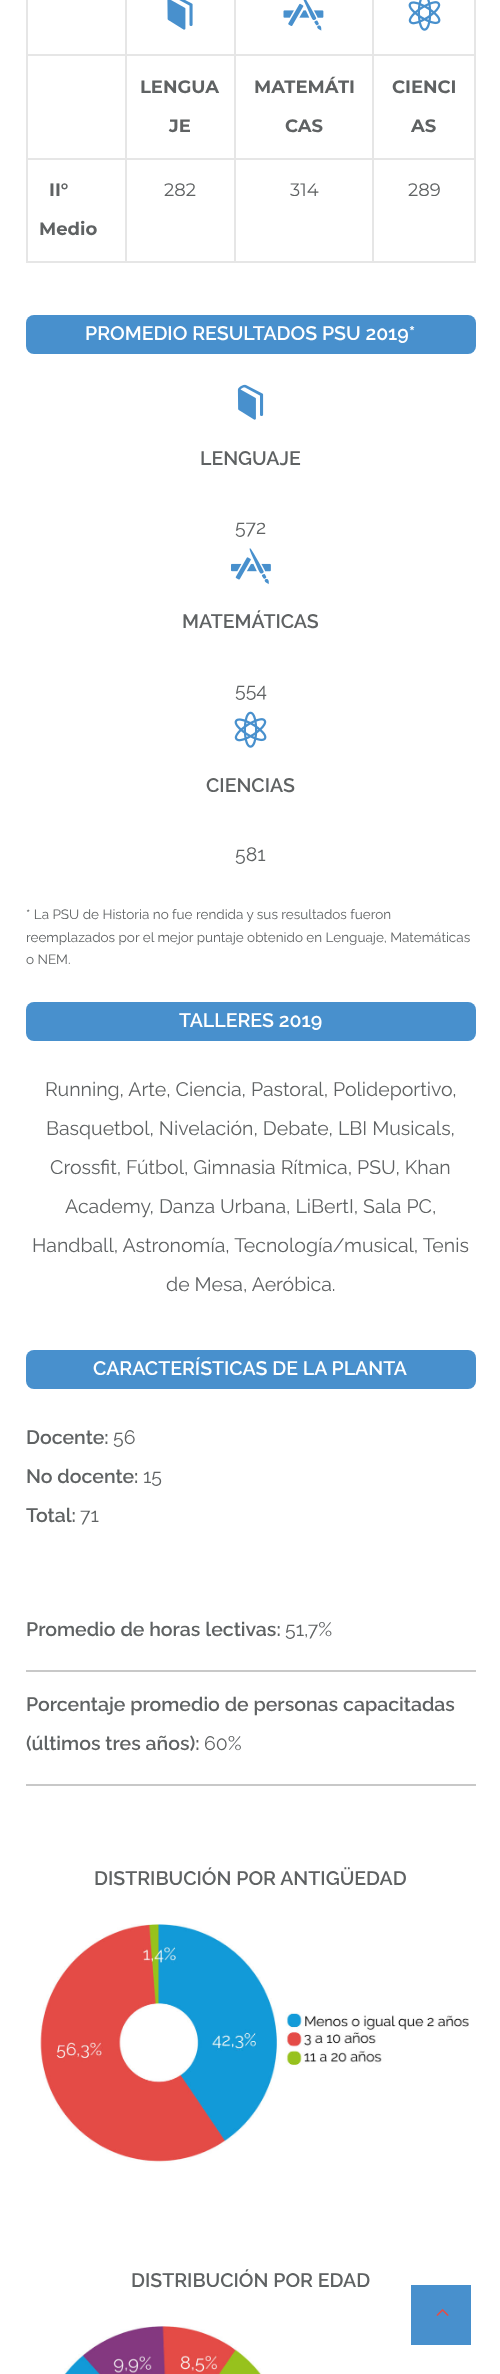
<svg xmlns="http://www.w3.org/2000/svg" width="500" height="2374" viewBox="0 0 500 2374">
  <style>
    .t1 { font: bold 18px Montserrat; fill: #5f6263; }
    .t2 { font: 18px Montserrat; fill: #5f6263; }
    .t3 { font: 600 19.5px Raleway; fill: #fff; }
    .t4 { font: 600 19.5px Raleway; fill: #5f6263; }
    .t5 { font: 19.5px Raleway; fill: #5f6263; }
    .t6 { font: 13.5px Raleway; fill: #5f6263; }
  </style>
  <rect width="100%" height="100%" fill="#fff"/>
  <rect x="372" y="54" width="104" height="2" fill="#e6e6e6"/>
  <rect x="372" y="158" width="104" height="2" fill="#e6e6e6"/>
  <rect x="474" y="158" width="2" height="105" fill="#e6e6e6"/>
  <rect x="372" y="261" width="104" height="2" fill="#e6e6e6"/>
  <rect x="372" y="158" width="2" height="105" fill="#e6e6e6"/>
  <rect x="234" y="158" width="140" height="2" fill="#e6e6e6"/>
  <rect x="372" y="54" width="2" height="105" fill="#e6e6e6"/>
  <rect x="234" y="54" width="140" height="2" fill="#e6e6e6"/>
  <rect x="234" y="261" width="140" height="2" fill="#e6e6e6"/>
  <rect x="234" y="158" width="2" height="105" fill="#e6e6e6"/>
  <rect x="125" y="158" width="111" height="2" fill="#e6e6e6"/>
  <rect x="234" y="54" width="2" height="105" fill="#e6e6e6"/>
  <rect x="125" y="54" width="111" height="2" fill="#e6e6e6"/>
  <rect x="125" y="261" width="111" height="2" fill="#e6e6e6"/>
  <rect x="125" y="158" width="2" height="105" fill="#e6e6e6"/>
  <rect x="26" y="158" width="100" height="2" fill="#e6e6e6"/>
  <rect x="125" y="54" width="2" height="105" fill="#e6e6e6"/>
  <rect x="26" y="54" width="100" height="2" fill="#e6e6e6"/>
  <rect x="125" y="0" width="2" height="56" fill="#e6e6e6"/>
  <image x="167" y="0" width="26" height="30" href="images/1.png"/>
  <rect x="234" y="0" width="2" height="56" fill="#e6e6e6"/>
  <image x="283" y="0" width="41" height="31" href="images/2.png"/>
  <rect x="372" y="0" width="2" height="56" fill="#e6e6e6"/>
  <image x="408" y="0" width="33" height="31" href="images/3.png"/>
  <rect x="26" y="261" width="100" height="2" fill="#e6e6e6"/>
  <rect x="26" y="158" width="2" height="105" fill="#e6e6e6"/>
  <rect x="26" y="0" width="2" height="159" fill="#e6e6e6"/>
  <text x="140" y="93" class="t1">LENGUA</text>
  <text x="169" y="132" class="t1">JE</text>
  <text x="254" y="93" class="t1">MATEMÁTI</text>
  <text x="285" y="132" class="t1">CAS</text>
  <rect x="474" y="0" width="2" height="159" fill="#e6e6e6"/>
  <text x="392" y="93" class="t1">CIENCI</text>
  <text x="411" y="132" class="t1">AS</text>
  <text x="49" y="196" class="t1">II°</text>
  <text x="39" y="235" class="t1">Medio</text>
  <text x="164" y="196" class="t2">282</text>
  <text x="290" y="196" class="t2">314</text>
  <text x="408" y="196" class="t2">289</text>
  <rect x="26" y="315" width="450" height="39" rx="8" fill="#4890cd"/>
  <text x="85" y="340" class="t3">PROMEDIO RESULTADOS PSU 2019*</text>
  <image x="237" y="384" width="27" height="36" href="images/4.png"/>
  <text x="200" y="465" class="t4">LENGUAJE</text>
  <text x="235" y="534" class="t5">572</text>
  <image x="231" y="548" width="40" height="37" href="images/5.png"/>
  <text x="182" y="628" class="t4">MATEMÁTICAS</text>
  <text x="235" y="697" class="t5">554</text>
  <image x="234" y="711" width="33" height="37" href="images/6.png"/>
  <text x="206" y="792" class="t4">CIENCIAS</text>
  <text x="235" y="861" class="t5">581</text>
  <text x="26" y="919" class="t6">* La PSU de Historia no fue rendida y sus resultados fueron</text>
  <text x="26" y="942" class="t6">reemplazados por el mejor puntaje obtenido en Lenguaje, Matemáticas</text>
  <text x="26" y="964" class="t6">o NEM.</text>
  <rect x="26" y="1002" width="450" height="39" rx="8" fill="#4890cd"/>
  <text x="179" y="1027" class="t3">TALLERES 2019</text>
  <text x="45" y="1096" class="t5">Running, Arte, Ciencia, Pastoral, Polideportivo,</text>
  <text x="46" y="1135" class="t5">Basquetbol, Nivelación, Debate, LBI Musicals,</text>
  <text x="50" y="1174" class="t5">Crossfit, Fútbol, Gimnasia Rítmica, PSU, Khan</text>
  <text x="65" y="1213" class="t5">Academy, Danza Urbana, LiBertI, Sala PC,</text>
  <text x="32" y="1252" class="t5">Handball, Astronomía, Tecnología/musical, Tenis</text>
  <text x="166" y="1291" class="t5">de Mesa, Aeróbica.</text>
  <rect x="26" y="1350" width="450" height="39" rx="8" fill="#4890cd"/>
  <text x="93" y="1375" class="t3">CARACTERÍSTICAS DE LA PLANTA</text>
  <text x="26" y="1444" class="t4">Docente:</text>
  <text x="113" y="1444" class="t5">56</text>
  <text x="26" y="1483" class="t4">No docente:</text>
  <text x="143" y="1483" class="t5">15</text>
  <text x="26" y="1522" class="t4">Total:</text>
  <text x="80" y="1522" class="t5">71</text>
  <text x="26" y="1636" class="t4">Promedio de horas lectivas:</text>
  <text x="285" y="1636" class="t5">51,7%</text>
  <rect x="26" y="1670" width="450" height="2" fill="#c8c8c8"/>
  <text x="26" y="1711" class="t4">Porcentaje promedio de personas capacitadas</text>
  <text x="26" y="1750" class="t4">(últimos tres años):</text>
  <text x="204" y="1750" class="t5">60%</text>
  <rect x="26" y="1784" width="450" height="2" fill="#c8c8c8"/>
  <text x="94" y="1885" class="t4">DISTRIBUCIÓN POR ANTIGÜEDAD</text>
  <image x="40" y="1924" width="429" height="239" href="images/7.png"/>
  <text x="131" y="2287" class="t4">DISTRIBUCIÓN POR EDAD</text>
  <image x="64" y="2326" width="198" height="48" href="images/8.png"/>
  <rect x="411" y="2285" width="60" height="60" fill="#4890cd"/>
  <image x="436" y="2309" width="13" height="7" href="images/9.png"/>
</svg>
